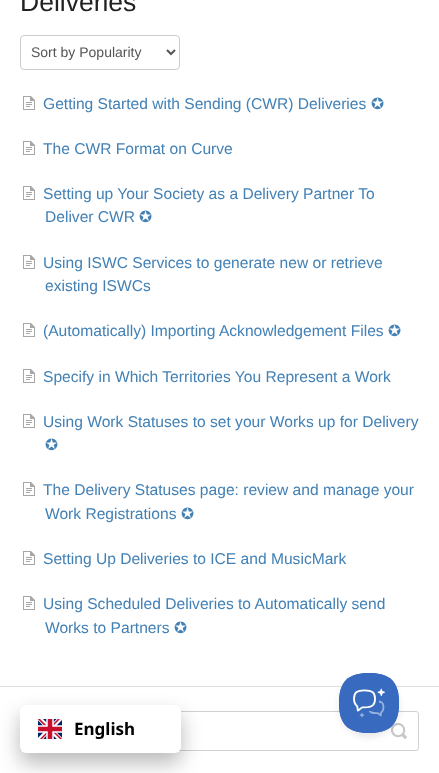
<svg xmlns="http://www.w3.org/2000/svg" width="439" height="773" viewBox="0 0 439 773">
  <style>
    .t1 { font: 26.5px Liberation Sans; fill: #222; }
    .t2 { font: 14px Liberation Sans; fill: #555; }
    .t3 { font: 15.6px Liberation Sans; fill: #4381b5; }
    .t4 { font: 15.6px DejaVu Sans; fill: #4381b5; }
    .t5 { font: bold 17px Noto Sans; fill: #000; }
  </style>
  <rect width="100%" height="100%" fill="#fff"/>
  <rect x="0" y="686" width="439" height="1" fill="#dedede"/>
  <text x="20" y="11" class="t1">Deliveries</text>
  <rect x="20.5" y="35.5" width="159" height="34" rx="3.5" fill="none" stroke="#ccc"/>
  <path d="M167 50L171 54L175 50" fill="none" stroke="#555" stroke-width="2"/>
  <text x="31" y="57" class="t2">Sort by Popularity</text>
  <image x="23" y="96" width="12" height="14" href="images/1.png"/>
  <text x="43" y="109" class="t3">Getting Started with Sending (CWR) Deliveries</text>
  <text x="371" y="109" class="t4">✪</text>
  <image x="23" y="141" width="12" height="14" href="images/1.png"/>
  <text x="43" y="154" class="t3">The CWR Format on Curve</text>
  <image x="23" y="186" width="12" height="14" href="images/1.png"/>
  <text x="43" y="199" class="t3">Setting up Your Society as a Delivery Partner To</text>
  <text x="45" y="222" class="t3">Deliver CWR</text>
  <text x="139" y="222" class="t4">✪</text>
  <image x="23" y="255" width="12" height="14" href="images/1.png"/>
  <text x="43" y="268" class="t3">Using ISWC Services to generate new or retrieve</text>
  <text x="45" y="291" class="t3">existing ISWCs</text>
  <image x="23" y="323" width="12" height="14" href="images/1.png"/>
  <text x="43" y="336" class="t3">(Automatically) Importing Acknowledgement Files</text>
  <text x="388" y="336" class="t4">✪</text>
  <image x="23" y="369" width="12" height="14" href="images/1.png"/>
  <text x="43" y="382" class="t3">Specify in Which Territories You Represent a Work</text>
  <image x="23" y="414" width="12" height="14" href="images/1.png"/>
  <text x="43" y="427" class="t3">Using Work Statuses to set your Works up for Delivery</text>
  <text x="45" y="450" class="t4">✪</text>
  <image x="23" y="482" width="12" height="14" href="images/1.png"/>
  <text x="43" y="495" class="t3">The Delivery Statuses page: review and manage your</text>
  <text x="45" y="519" class="t3">Work Registrations</text>
  <text x="181" y="519" class="t4">✪</text>
  <image x="23" y="551" width="12" height="14" href="images/1.png"/>
  <text x="43" y="564" class="t3">Setting Up Deliveries to ICE and MusicMark</text>
  <image x="23" y="596" width="12" height="14" href="images/1.png"/>
  <text x="43" y="609" class="t3">Using Scheduled Deliveries to Automatically send</text>
  <text x="45" y="633" class="t3">Works to Partners</text>
  <text x="174" y="633" class="t4">✪</text>
  <rect x="20.5" y="711.5" width="398" height="39" rx="2.5" fill="none" stroke="#d0d0d0"/>
  <image x="391" y="723" width="16" height="16" href="images/2.png"/>
  <rect x="20" y="715" width="161" height="48" rx="6" fill="#02020247" filter="blur(10px)"/>
  <rect x="20" y="705" width="161" height="48" rx="6" fill="#fff"/>
  <image x="38" y="719" width="24" height="20" href="images/3.png"/>
  <text x="74" y="735" class="t5">English</text>
  <rect x="339" y="677" width="60" height="60" rx="30" fill="#0000001a" filter="blur(3.5px)"/>
  <image x="339" y="673" width="60" height="60" href="images/4.png"/>
</svg>
